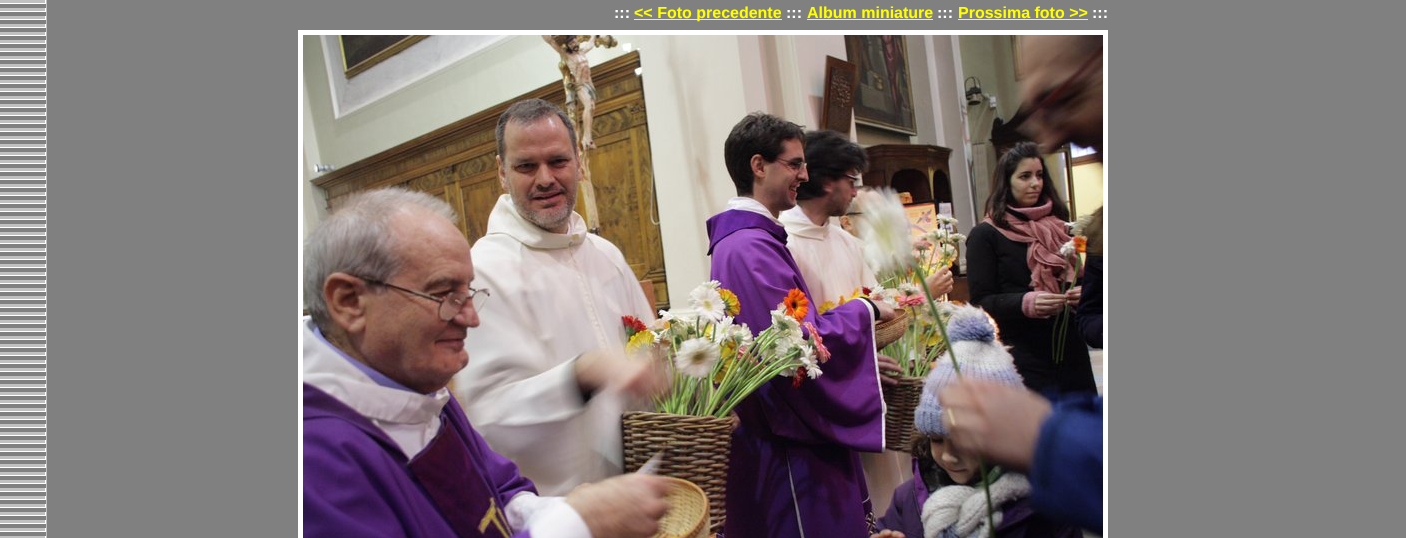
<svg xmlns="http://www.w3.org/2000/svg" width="1406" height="538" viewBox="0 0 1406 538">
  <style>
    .t1 { font: bold 16px Liberation Sans; fill: #fff; }
    .t2 { font: bold 16px Liberation Sans; fill: #ff0; }
  </style>
  <rect width="100%" height="100%" fill="#808080"/>
  <image x="0" y="0" width="47" height="538" href="images/1.png"/>
  <text x="614" y="18" class="t1">:::</text>
  <rect x="634" y="19" width="148" height="1" fill="#ff0"/>
  <text x="634" y="18" class="t2">&lt;&lt; Foto precedente</text>
  <text x="786" y="18" class="t1">:::</text>
  <text x="807" y="18" class="t2">Album miniature</text>
  <rect x="807" y="19" width="126" height="1" fill="#ff0"/>
  <text x="937" y="18" class="t1">:::</text>
  <text x="958" y="18" class="t2">Prossima foto &gt;&gt;</text>
  <rect x="958" y="19" width="130" height="1" fill="#ff0"/>
  <text x="1092" y="18" class="t1">:::</text>
  <rect x="300.5" y="32.5" width="805" height="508" fill="none" stroke="#fff" stroke-width="5"/>
  <image x="303" y="35" width="800" height="503" href="images/2.png"/>
</svg>
